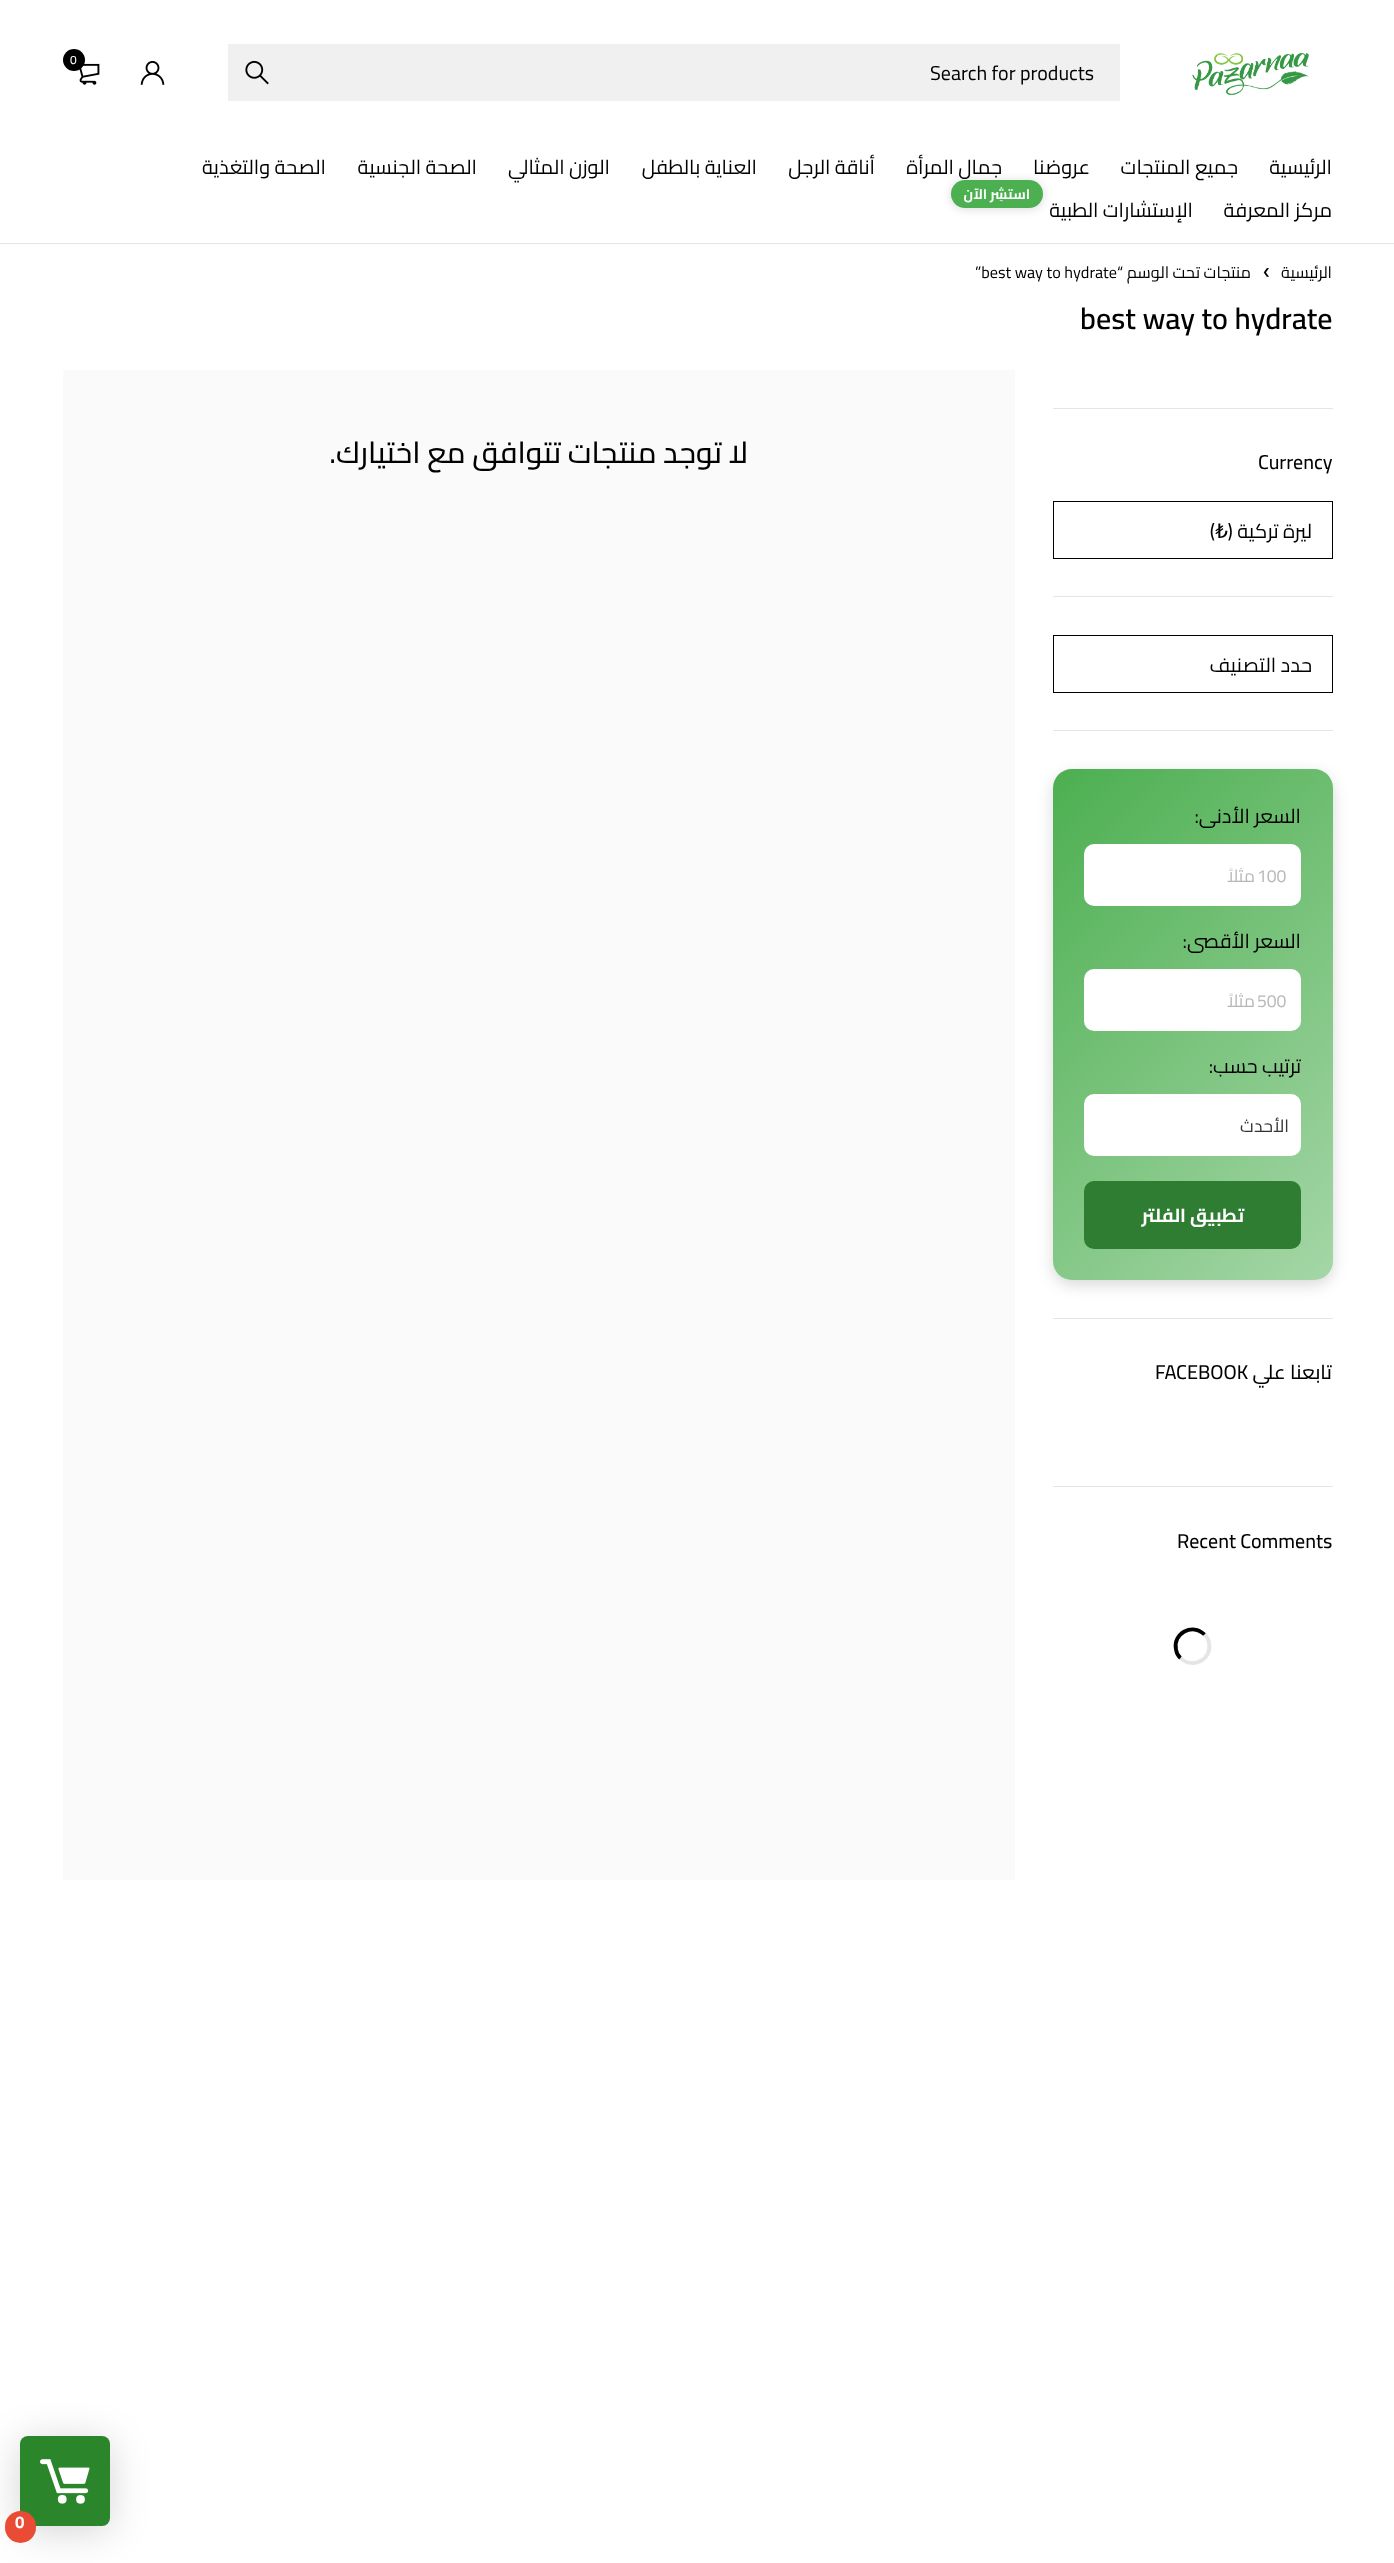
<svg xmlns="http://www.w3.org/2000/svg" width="1394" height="2563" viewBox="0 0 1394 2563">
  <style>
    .t1 { font: 500 12px Cairo; fill: #fff; }
    .t2 { font: 20px Cairo; fill: #000; }
    .t3 { font: 20px Cairo; direction: rtl; fill: #000; }
    .t4 { font: bold 13.75px Cairo; direction: rtl; fill: #fff; }
    .t5 { font: 16.25px Cairo; direction: rtl; fill: #000; }
    .t6 { font: 16.25px Cairo; fill: #000; }
    .t7 { font: 600 30px Cairo; fill: #000; }
    .t8 { font: 500 20px Cairo; fill: #000; }
    .t9 { font: 20px 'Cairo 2'; direction: rtl; fill: #000; }
    .t10 { font: 20px DejaVu Sans; direction: rtl; fill: #000; }
    .t11 { font: 17.5px Cairo; fill: #b8b8b8; }
    .t12 { font: 17.5px Cairo; direction: rtl; fill: #b8b8b8; }
    .t13 { font: 17.5px Cairo; direction: rtl; fill: #333; }
    .t14 { font: bold 18.75px Cairo; direction: rtl; fill: #fff; }
    .t15 { font: 500 20px Cairo; direction: rtl; fill: #000; }
    .t16 { font: 500 30px Cairo; direction: rtl; fill: #000; }
    .t17 { font: bold 17px Cairo; fill: #fff; }
  </style>
  <defs>
    <linearGradient id="g1" gradientUnits="userSpaceOnUse" x1="995" y1="827" x2="1390" y2="1222"><stop offset="0" stop-color="#4caf50"/><stop offset="1" stop-color="#a5d6a7"/></linearGradient>
  </defs>
  <rect width="100%" height="100%" fill="#fff"/>
  <image x="1192" y="53" width="117" height="43" href="images/1.png"/>
  <image x="79" y="63" width="21" height="22" href="images/2.png"/>
  <circle cx="74" cy="60" r="11" fill="#000"/>
  <text x="70" y="64" class="t1">0</text>
  <image x="140" y="61" width="25" height="24" href="images/3.png"/>
  <rect x="228" y="44" width="892" height="57" fill="#f0f0f0"/>
  <text x="930" y="80" class="t2">Search for products</text>
  <image x="245" y="60" width="24" height="25" href="images/4.png"/>
  <text x="1332" y="174" class="t3">الرئيسية</text>
  <text x="1238" y="174" class="t3">جميع المنتجات</text>
  <text x="1090" y="174" class="t3">عروضنا</text>
  <text x="1002" y="174" class="t3">جمال المرأة</text>
  <text x="875" y="174" class="t3">أناقة الرجل</text>
  <text x="757" y="174" class="t3">العناية بالطفل</text>
  <text x="610" y="174" class="t3">الوزن المثالي</text>
  <text x="477" y="174" class="t3">الصحة الجنسية</text>
  <text x="326" y="174" class="t3">الصحة والتغذية</text>
  <text x="1332" y="217" class="t3">مركز المعرفة</text>
  <rect x="951" y="181" width="92" height="28" rx="14" fill="#00000026" filter="blur(5px)"/>
  <rect x="951" y="180" width="92" height="28" rx="14" fill="#4caf50"/>
  <text x="1030" y="199" class="t4">استشِر الآن</text>
  <text x="1193" y="217" class="t3">الإستشارات الطبية</text>
  <rect x="0" y="243" width="1394" height="1" fill="#e5e5e5"/>
  <text x="1332" y="278" class="t5">الرئيسية</text>
  <image x="1263" y="268" width="6" height="9" href="images/5.png"/>
  <text x="1251" y="278" class="t5">منتجات تحت الوسم “</text>
  <text x="975" y="278" class="t6">”best way to hydrate</text>
  <text x="1080" y="329" class="t7">best way to hydrate</text>
  <rect x="1053" y="408" width="280" height="1" fill="#e5e5e5"/>
  <text x="1258" y="469" class="t8">Currency</text>
  <rect x="1053.5" y="501.5" width="279" height="57" fill="none" stroke="#000"/>
  <text x="1312" y="538" class="t9">ليرة تركية (</text>
  <text x="1228" y="538" class="t10">₺</text>
  <text x="1215" y="538" class="t9">)</text>
  <rect x="1053" y="596" width="280" height="1" fill="#e5e5e5"/>
  <rect x="1053.5" y="635.5" width="279" height="57" fill="none" stroke="#000"/>
  <text x="1312" y="672" class="t3">حدد التصنيف</text>
  <rect x="1053" y="730" width="280" height="1" fill="#e5e5e5"/>
  <rect x="1053" y="774" width="280" height="511" rx="19" fill="#00000026" filter="blur(7.5px)"/>
  <rect x="1053" y="769" width="280" height="511" rx="19" fill="url(#g1)"/>
  <text x="1301" y="823" class="t3">السعر الأدنى:</text>
  <rect x="1084" y="844" width="217" height="62" rx="10" fill="#fff"/>
  <text x="1257" y="882" class="t11">100</text>
  <text x="1255" y="882" class="t12">مثلاً</text>
  <text x="1301" y="948" class="t3">السعر الأقصى:</text>
  <rect x="1084" y="969" width="217" height="62" rx="10" fill="#fff"/>
  <text x="1257" y="1007" class="t11">500</text>
  <text x="1255" y="1007" class="t12">مثلاً</text>
  <text x="1301" y="1073" class="t3">ترتيب حسب:</text>
  <rect x="1084" y="1094" width="217" height="62" rx="10" fill="#fff"/>
  <text x="1289" y="1132" class="t13">الأحدث</text>
  <rect x="1084" y="1181" width="217" height="68" rx="10" fill="#2e7d32"/>
  <text x="1244" y="1222" class="t14">تطبيق الفلتر</text>
  <rect x="1053" y="1318" width="280" height="1" fill="#e5e5e5"/>
  <text x="1332" y="1379" class="t15">تابعنا علي</text>
  <text x="1155" y="1379" class="t8">FACEBOOK</text>
  <rect x="1053" y="1486" width="280" height="1" fill="#e5e5e5"/>
  <text x="1177" y="1548" class="t8">Recent Comments</text>
  <path d="M1204.5 1634.5C1207 1636.5 1208.5 1639.5 1209 1643C1212.5 1659 1192.5 1670 1180.5 1658" fill="none" stroke="#e5e5e5" stroke-width="3.8"/>
  <path d="M1180.5 1658C1178 1656 1176.5 1653 1176 1649.5C1172.5 1633.5 1192.5 1622.5 1204.5 1634.5" fill="none" stroke="#000" stroke-width="3.8"/>
  <rect x="63" y="370" width="952" height="1510" fill="#fafafa"/>
  <text x="748" y="463" class="t16">لا توجد منتجات تتوافق مع اختيارك.</text>
  <rect x="20" y="2441" width="90" height="90" rx="8" fill="#0000002b" filter="blur(19px)"/>
  <rect x="20" y="2436" width="90" height="90" rx="8" fill="#2b862b"/>
  <image x="40" y="2459" width="50" height="45" href="images/6.png"/>
  <rect x="5" y="2511" width="31" height="32" rx="15.5" fill="#e94b35"/>
  <text x="15" y="2528" class="t17">0</text>
</svg>
